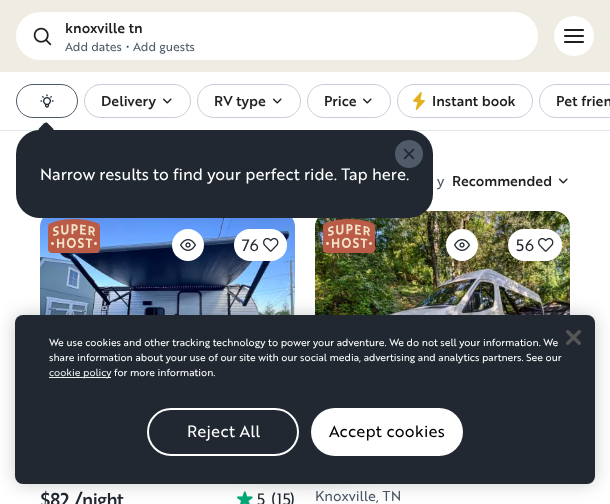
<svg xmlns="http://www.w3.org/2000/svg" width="610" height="504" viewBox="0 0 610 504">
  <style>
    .t1 { font: 500 14px 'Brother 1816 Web'; fill: #1d1f20; }
    .t2 { font: 12px 'Brother 1816 Web'; fill: #4f5b69; }
    .t3 { font: 14px 'Brother 1816 Web'; fill: #4f5b69; }
    .t4 { font: 16px 'Brother 1816 Web'; fill: #212831; }
    .t5 { font: 500 18px 'Brother 1816 Web'; letter-spacing: -0.5px; fill: #212831; }
    .t6 { font: 16px 'Brother 1816 Web'; fill: #fff; }
    .t7 { font: 10px 'Brother 1816 Web'; fill: #fff; }
    .t8 { font: 10px 'Brother 1816 Web'; fill: #e6f0ef; }
    .t9 { font: 16px 'Brother 1816 Web'; letter-spacing: 0.2px; fill: #fff; }
    .t10 { font: 16px 'Brother 1816 Web'; letter-spacing: 0.2px; fill: #000; }
  </style>
  <rect width="100%" height="100%" fill="#fff"/>
  <rect x="0" y="0" width="610" height="72" fill="#eeece3"/>
  <rect x="16" y="12" width="522" height="48" rx="24" fill="#fff"/>
  <image x="33" y="27" width="19" height="19" href="images/1.png"/>
  <text x="65" y="33" class="t1">knoxville tn</text>
  <text x="65" y="51" class="t2">Add dates</text>
  <text x="126" y="51" class="t2">•</text>
  <text x="133" y="51" class="t2">Add guests</text>
  <circle cx="574" cy="36" r="20" fill="#fff"/>
  <image x="564" y="29" width="20" height="14" href="images/2.png"/>
  <rect x="0" y="130" width="610" height="1" fill="#e3e7ed"/>
  <rect x="16.5" y="84.5" width="61" height="33" rx="16.5" fill="none" stroke="#4f5b69"/>
  <image x="40" y="94" width="14" height="14" href="images/3.png"/>
  <rect x="84.5" y="84.5" width="106" height="33" rx="16.5" fill="none" stroke="#c8ceda"/>
  <text x="101" y="106" class="t1">Delivery</text>
  <image x="163" y="98" width="9" height="6" href="images/4.png"/>
  <rect x="197.5" y="84.5" width="103" height="33" rx="16.5" fill="none" stroke="#c8ceda"/>
  <text x="214" y="106" class="t1">RV type</text>
  <image x="273" y="98" width="9" height="6" href="images/4.png"/>
  <rect x="307.5" y="84.5" width="83" height="33" rx="16.5" fill="none" stroke="#c8ceda"/>
  <text x="324" y="106" class="t1">Price</text>
  <image x="363" y="98" width="9" height="6" href="images/4.png"/>
  <rect x="397.5" y="84.5" width="135" height="33" rx="16.5" fill="none" stroke="#c8ceda"/>
  <image x="413" y="92" width="12" height="18" href="images/5.png"/>
  <text x="432" y="106" class="t1">Instant book</text>
  <rect x="539.5" y="84.5" width="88" height="33" rx="16.5" fill="none" stroke="#c8ceda"/>
  <text x="556" y="106" class="t1">Pet frien</text>
  <text x="437" y="186" class="t3">y</text>
  <text x="452" y="186" class="t1">Recommended</text>
  <image x="559" y="178" width="9" height="6" href="images/4.png"/>
  <image x="40" y="218" width="255" height="97" href="images/6.png"/>
  <image x="48" y="219" width="52" height="34" href="images/7.png"/>
  <circle cx="188" cy="245" r="16" fill="#fff"/>
  <image x="180" y="239" width="16" height="12" href="images/8.png"/>
  <rect x="234" y="229" width="53" height="32" rx="16" fill="#fff"/>
  <text x="242" y="251" class="t4">76</text>
  <image x="263" y="238" width="16" height="14" href="images/9.png"/>
  <text x="40" y="506" class="t5">$82</text>
  <text x="74" y="506" class="t5">/night</text>
  <image x="237" y="491" width="16" height="13" href="images/10.png"/>
  <text x="257" y="505" class="t4">5</text>
  <text x="271" y="505" class="t4">(15</text>
  <text x="290" y="505" class="t4">)</text>
  <image x="315" y="211" width="255" height="104" href="images/11.png"/>
  <image x="323" y="219" width="52" height="34" href="images/12.png"/>
  <circle cx="462" cy="245" r="16" fill="#fff"/>
  <image x="454" y="239" width="16" height="12" href="images/8.png"/>
  <rect x="508" y="229" width="54" height="32" rx="16" fill="#fff"/>
  <text x="516" y="251" class="t4">56</text>
  <image x="538" y="238" width="16" height="14" href="images/9.png"/>
  <text x="315" y="501" class="t3">Knoxville, TN</text>
  <rect x="255" y="429" width="100" height="44" rx="22" fill="#0000001a" filter="blur(17px)"/>
  <rect x="16" y="130" width="417" height="88" rx="24" fill="#212831"/>
  <path d="M47.5 123L52 127.5C55 130.5 53.5 131 51 133.5C46 138.5 47 139.5 42 134C38 130.5 37 130.5 41 126.5C42 125.5 45 121 47.5 123Z" fill="#212831"/>
  <text x="40" y="180" class="t6">Narrow results to find your perfect ride. Tap here.</text>
  <circle cx="409" cy="154" r="15" fill="#4f5b69" stroke="#212831" stroke-width="2"/>
  <image x="403" y="148" width="12" height="12" href="images/13.png"/>
  <rect x="15" y="315" width="580" height="169" rx="8" fill="#00000033" filter="blur(9px)"/>
  <rect x="15" y="315" width="580" height="169" rx="8" fill="#212831"/>
  <text x="49" y="346" class="t7">We use cookies and other tracking technology to power your adventure. We do not sell your information. We</text>
  <text x="49" y="361" class="t7">share information about your use of our site with our social media, advertising and analytics partners. See our</text>
  <rect x="49" y="377" width="62" height="1" fill="#e6f0ef"/>
  <text x="49" y="376" class="t8">cookie policy</text>
  <text x="114" y="376" class="t7">for more information.</text>
  <rect x="148" y="409" width="150" height="46" rx="23" fill="none" stroke="#fff" stroke-width="2"/>
  <text x="187" y="437" class="t9">Reject All</text>
  <rect x="311" y="408" width="152" height="48" rx="24" fill="#fff"/>
  <text x="329" y="437" class="t10">Accept cookies</text>
  <image x="566" y="330" width="15" height="15" href="images/14.png"/>
</svg>
